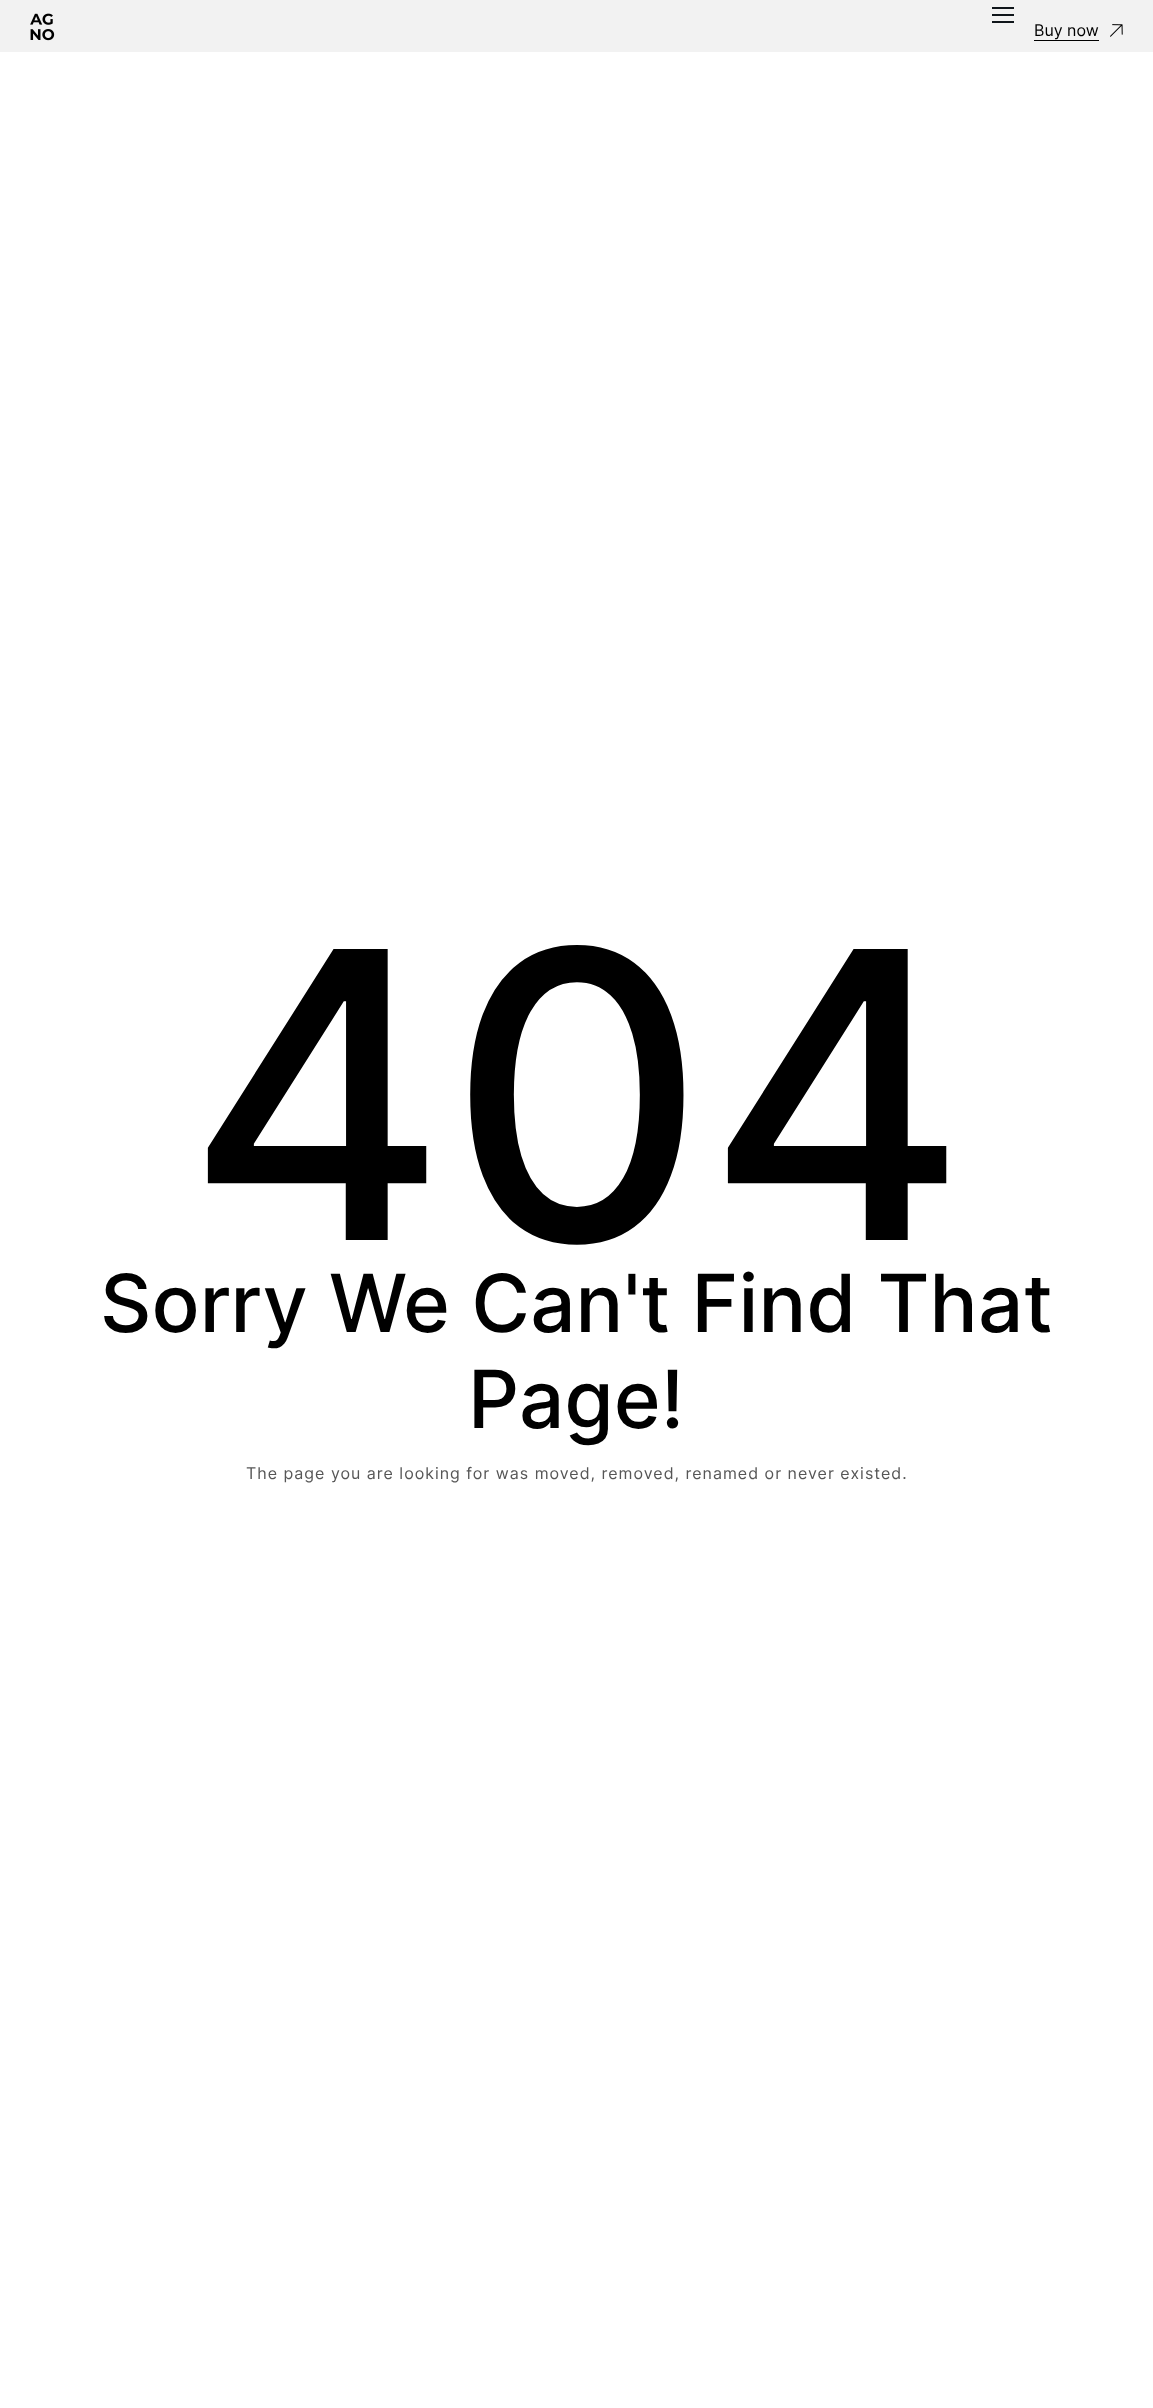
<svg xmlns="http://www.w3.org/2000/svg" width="1153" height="2408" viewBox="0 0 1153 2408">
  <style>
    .t1 { font: 16px Inter; fill: #000; }
    .t2 { font: 500 400px Inter; fill: #000; }
    .t3 { font: 500 80px Inter; fill: #000; }
    .t4 { font: 16px Inter; letter-spacing: 1px; fill: #565656; }
  </style>
  <rect width="100%" height="100%" fill="#fff"/>
  <rect x="0" y="0" width="1153" height="52" fill="#f2f2f2"/>
  <image x="30" y="13" width="25" height="28" href="images/1.png"/>
  <rect x="992" y="14" width="22" height="2" fill="#10161b"/>
  <rect x="992" y="7" width="22" height="2" fill="#10161b"/>
  <rect x="992" y="21" width="22" height="2" fill="#10161b"/>
  <text x="1034" y="36" class="t1">Buy now</text>
  <rect x="1034" y="40" width="65" height="1" fill="#000"/>
  <image x="1110" y="24" width="13" height="13" href="images/2.png"/>
  <text x="186" y="1240" class="t2">404</text>
  <text x="100" y="1332" class="t3">Sorry We Can't Find That</text>
  <text x="468" y="1428" class="t3">Page!</text>
  <text x="246" y="1479" class="t4">The page you are looking for was moved, removed, renamed or never existed.</text>
</svg>
